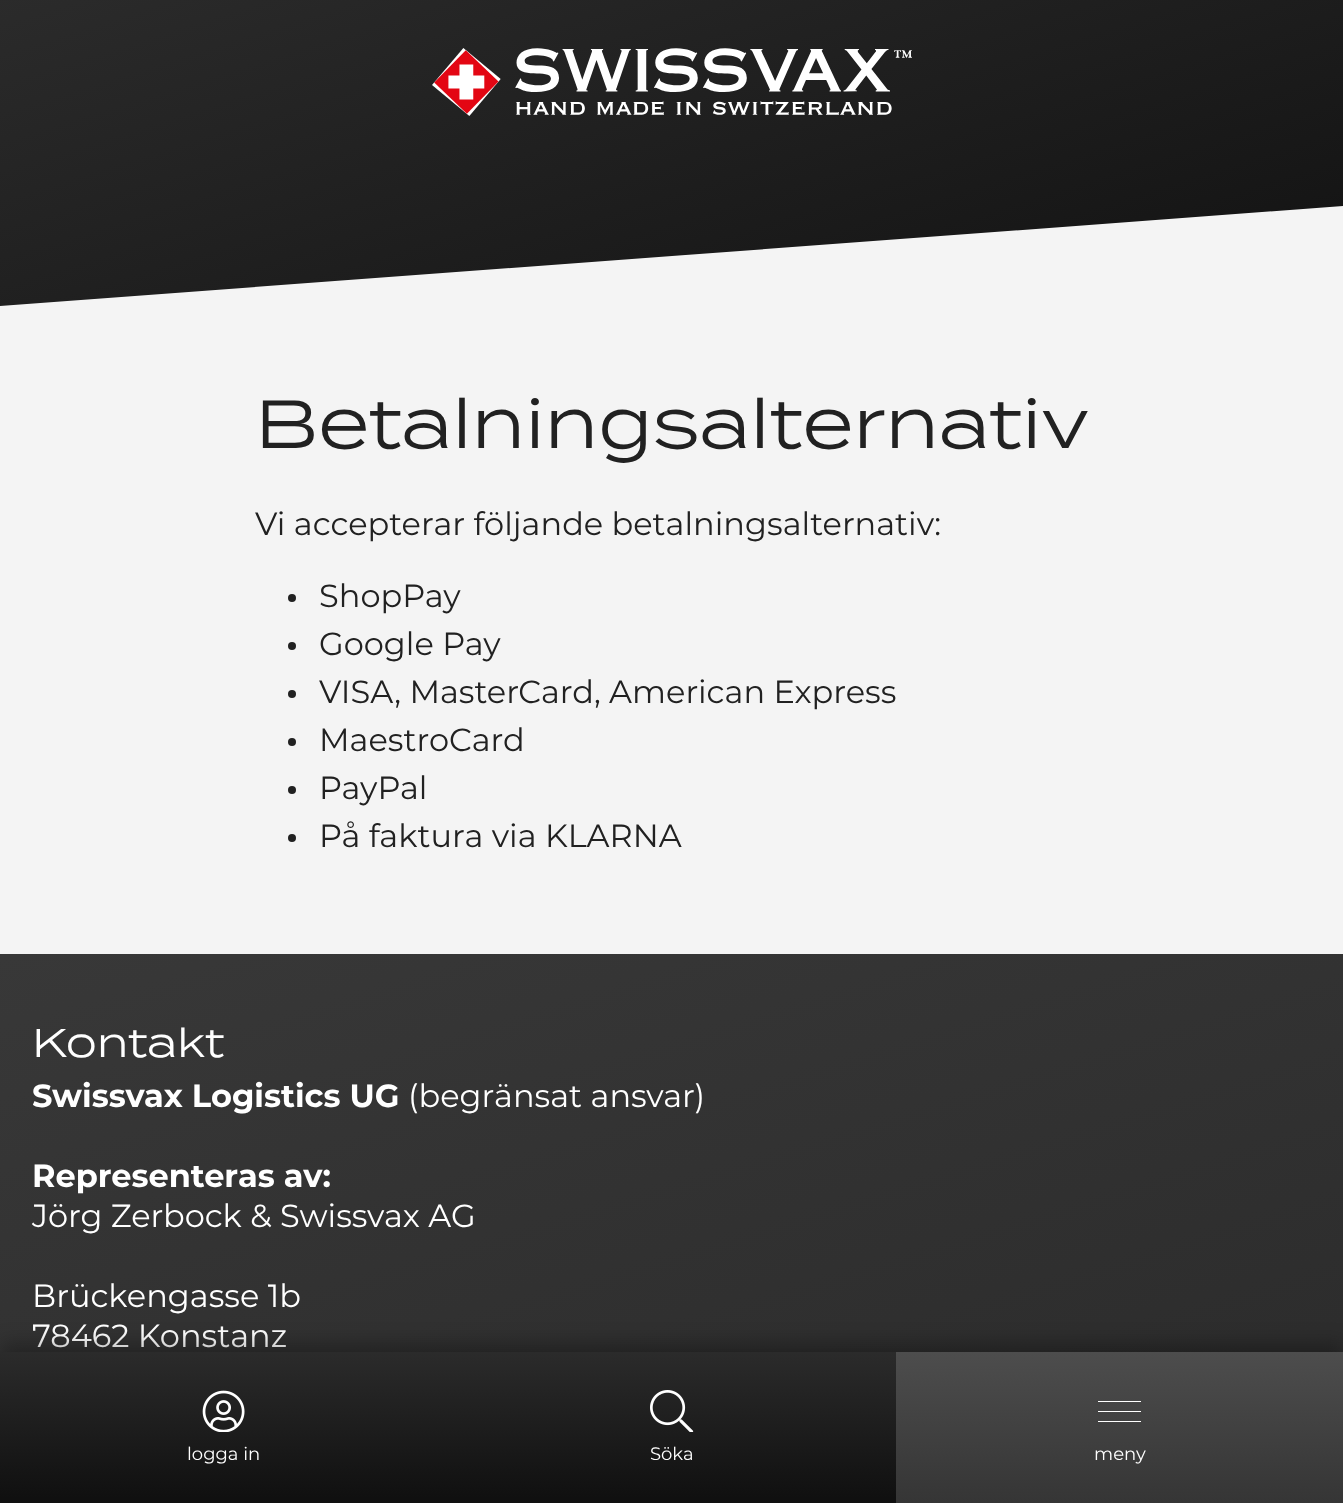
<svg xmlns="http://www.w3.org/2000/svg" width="1343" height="1503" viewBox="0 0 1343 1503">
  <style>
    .t1 { font: 68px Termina; fill: #212121; }
    .t2 { font: 32px Montserrat; fill: #212121; }
    .t3 { font: 40px Termina; fill: #fff; }
    .t4 { font: bold 32px Montserrat; fill: #fff; }
    .t5 { font: 32px Montserrat; fill: #fff; }
    .t6 { font: 18px Montserrat; fill: #fff; }
  </style>
  <defs>
    <linearGradient id="g1" gradientUnits="userSpaceOnUse" x1="552" y1="-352" x2="792" y2="416"><stop offset="0" stop-color="#313131"/><stop offset="1" stop-color="#141414"/></linearGradient>
    <linearGradient id="g2" gradientUnits="userSpaceOnUse" x1="344" y1="849" x2="1000" y2="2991"><stop offset="0" stop-color="#383838"/><stop offset="1" stop-color="#171717"/></linearGradient>
    <linearGradient id="g3" gradientUnits="userSpaceOnUse" x1="672" y1="1352" x2="672" y2="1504"><stop offset="0" stop-color="#2b2b2b"/><stop offset="1" stop-color="#0f0f0f"/></linearGradient>
    <linearGradient id="g4" gradientUnits="userSpaceOnUse" x1="672" y1="1352" x2="672" y2="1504"><stop offset="0" stop-color="#4d4d4d"/><stop offset="1" stop-color="#353535"/></linearGradient>
  </defs>
  <rect width="100%" height="100%" fill="#f4f4f4"/>
  <path d="M0-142L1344-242V206L0 306Z" fill="url(#g1)"/>
  <image x="432" y="48" width="480" height="68" href="images/1.png"/>
  <text x="255" y="448" class="t1">Betalningsalternativ</text>
  <text x="255" y="535" class="t2">Vi accepterar följande betalningsalternativ:</text>
  <circle cx="292" cy="598" r="4" fill="#212121"/>
  <text x="319" y="607" class="t2">ShopPay</text>
  <circle cx="292" cy="646" r="4" fill="#212121"/>
  <text x="319" y="655" class="t2">Google Pay</text>
  <circle cx="292" cy="694" r="4" fill="#212121"/>
  <text x="319" y="703" class="t2">VISA, MasterCard, American Express</text>
  <circle cx="292" cy="742" r="4" fill="#212121"/>
  <text x="319" y="751" class="t2">MaestroCard</text>
  <circle cx="292" cy="790" r="4" fill="#212121"/>
  <text x="319" y="799" class="t2">PayPal</text>
  <circle cx="292" cy="838" r="4" fill="#212121"/>
  <text x="319" y="847" class="t2">På faktura via KLARNA</text>
  <rect x="0" y="954" width="1343" height="398" fill="url(#g2)"/>
  <text x="32" y="1057" class="t3">Kontakt</text>
  <text x="32" y="1107" class="t4">Swissvax Logistics UG</text>
  <text x="408" y="1107" class="t5">(begränsat ansvar)</text>
  <text x="32" y="1187" class="t4">Representeras av:</text>
  <text x="32" y="1227" class="t5">Jörg Zerbock &amp; Swissvax AG</text>
  <text x="32" y="1307" class="t5">Brückengasse 1b</text>
  <text x="32" y="1347" class="t5">78462 Konstanz</text>
  <rect x="0" y="1344" width="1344" height="152" fill="#0000004d" filter="blur(10px)"/>
  <rect x="0" y="1352" width="896" height="151" fill="url(#g3)"/>
  <rect x="896" y="1352" width="447" height="151" fill="url(#g4)"/>
  <image x="202" y="1390" width="43" height="42" href="images/2.png"/>
  <text x="187" y="1460" class="t6">logga in</text>
  <image x="650" y="1390" width="44" height="42" href="images/3.png"/>
  <text x="650" y="1460" class="t6">Söka</text>
  <rect x="1098" y="1401" width="43" height="1" fill="#fff"/>
  <rect x="1098" y="1411" width="43" height="1" fill="#fff"/>
  <rect x="1098" y="1421" width="43" height="1" fill="#fff"/>
  <text x="1094" y="1460" class="t6">meny</text>
</svg>
